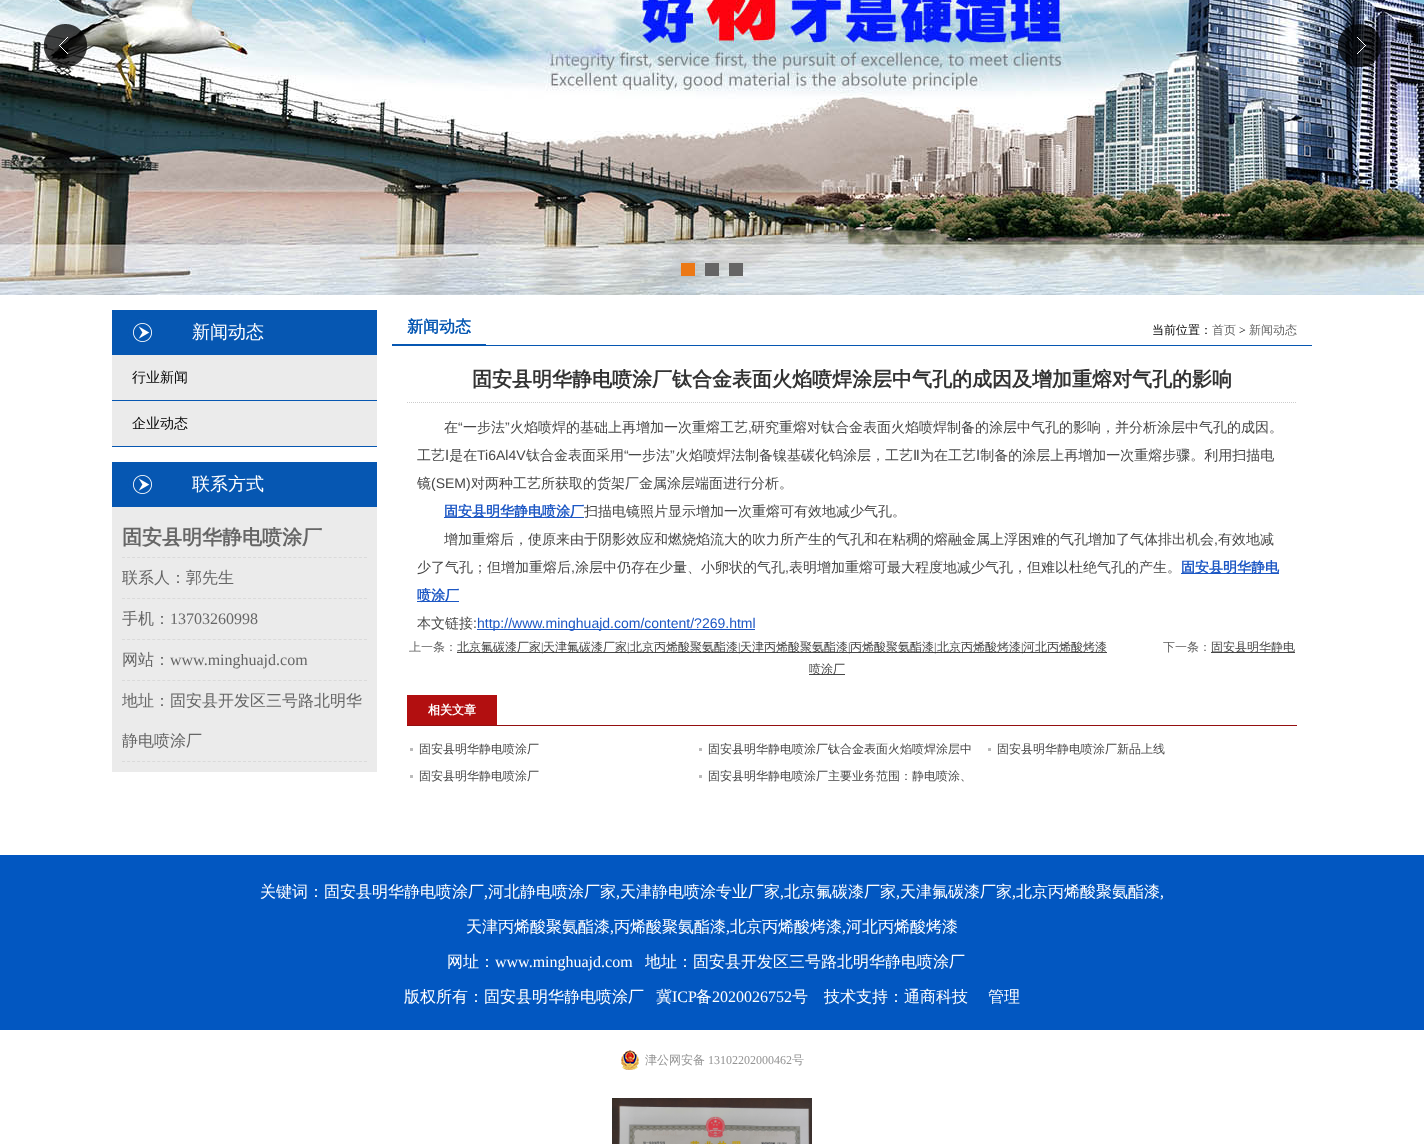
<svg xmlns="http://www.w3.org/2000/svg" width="1424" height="1144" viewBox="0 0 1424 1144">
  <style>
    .t1 { font: 500 18px WenQuanYi Zen Hei; fill: #fff; }
    .t2 { font: 500 14px WenQuanYi Zen Hei; fill: #000; }
    .t3 { font: bold 20px WenQuanYi Zen Hei; fill: #666; }
    .t4 { font: 500 16px WenQuanYi Zen Hei; fill: #666; }
    .t5 { font: 16px Liberation Serif; fill: #666; }
    .t6 { font: bold 16px WenQuanYi Zen Hei; fill: #0657b2; }
    .t7 { font: 500 12px WenQuanYi Zen Hei; fill: #000; }
    .t8 { font: 500 12px WenQuanYi Zen Hei; fill: #666; }
    .t9 { font: 12px Liberation Serif; fill: #000; }
    .t10 { font: bold 20px WenQuanYi Zen Hei; fill: #333; }
    .t11 { font: 500 14px WenQuanYi Zen Hei; fill: #464646; }
    .t12 { font: 14px Liberation Sans; fill: #464646; }
    .t13 { font: 14px DejaVu Sans; fill: #464646; }
    .t14 { font: bold 14px WenQuanYi Zen Hei; fill: #1c57c4; }
    .t15 { font: 14px Liberation Sans; fill: #1c57c4; }
    .t16 { font: 500 12px WenQuanYi Zen Hei; fill: #606060; }
    .t17 { font: 500 12px WenQuanYi Zen Hei; fill: #464646; }
    .t18 { font: 12px Liberation Serif; fill: #464646; }
    .t19 { font: bold 12px WenQuanYi Zen Hei; fill: #fff; }
    .t20 { font: 500 16px WenQuanYi Zen Hei; fill: #fff; }
    .t21 { font: 16px Liberation Serif; fill: #fff; }
    .t22 { font: 500 12px WenQuanYi Zen Hei; fill: #939393; }
    .t23 { font: 12px Liberation Serif; fill: #939393; }
  </style>
  <rect width="100%" height="100%" fill="#fff"/>
  <image x="0" y="0" width="1424" height="295" href="images/1.png"/>
  <image x="44" y="24" width="43" height="43" href="images/2.png"/>
  <image x="1338" y="24" width="43" height="43" href="images/3.png"/>
  <rect x="681" y="263" width="14" height="13" fill="#ec7815"/>
  <rect x="705" y="263" width="14" height="13" fill="#656565"/>
  <rect x="729" y="263" width="14" height="13" fill="#656565"/>
  <image x="112" y="310" width="265" height="45" href="images/4.png"/>
  <text x="192" y="338" class="t1">新闻动态</text>
  <rect x="112" y="355" width="265" height="45" fill="#ebebeb"/>
  <rect x="112" y="400" width="265" height="1" fill="#0657b2"/>
  <text x="132" y="382" class="t2">行业新闻</text>
  <rect x="112" y="401" width="265" height="45" fill="#ebebeb"/>
  <rect x="112" y="446" width="265" height="1" fill="#0657b2"/>
  <text x="132" y="428" class="t2">企业动态</text>
  <image x="112" y="462" width="265" height="45" href="images/4.png"/>
  <text x="192" y="490" class="t1">联系方式</text>
  <rect x="112" y="507" width="265" height="265" fill="#ebebeb"/>
  <path d="M122 557.5H367" fill="none" stroke="#dadada" stroke-dasharray="3 2.04"/>
  <text x="122" y="544" class="t3">固安县明华静电喷涂厂</text>
  <path d="M122 598.5H367" fill="none" stroke="#dadada" stroke-dasharray="3 2.04"/>
  <text x="122" y="583" class="t4">联系人：郭先生</text>
  <path d="M122 639.5H367" fill="none" stroke="#dadada" stroke-dasharray="3 2.04"/>
  <text x="122" y="624" class="t4">手机：</text>
  <text x="170" y="624" class="t5">13703260998</text>
  <path d="M122 680.5H367" fill="none" stroke="#dadada" stroke-dasharray="3 2.04"/>
  <text x="122" y="665" class="t4">网站：</text>
  <text x="170" y="665" class="t5">www.minghuajd.com</text>
  <path d="M122 761.5H367" fill="none" stroke="#dadada" stroke-dasharray="3 2.04"/>
  <text x="122" y="706" class="t4">地址：固安县开发区三号路北明华</text>
  <text x="122" y="746" class="t4">静电喷涂厂</text>
  <rect x="486" y="345" width="826" height="1" fill="#0657b2"/>
  <rect x="392" y="344" width="94" height="2" fill="#0657b2"/>
  <text x="407" y="332" class="t6">新闻动态</text>
  <text x="1152" y="334" class="t7">当前位置：</text>
  <text x="1212" y="334" class="t8">首页</text>
  <text x="1239" y="334" class="t9">&gt;</text>
  <text x="1249" y="334" class="t8">新闻动态</text>
  <path d="M407 402.5H1297" fill="none" stroke="#ccc" stroke-dasharray="1 1"/>
  <text x="472" y="386" class="t10">固安县明华静电喷涂厂钛合金表面火焰喷焊涂层中气孔的成因及增加重熔对气孔的影响</text>
  <text x="444" y="432" class="t11">在</text>
  <text x="458" y="432" class="t12">“</text>
  <text x="463" y="432" class="t11">一步法</text>
  <text x="505" y="432" class="t12">”</text>
  <text x="510" y="432" class="t11">火焰喷焊的基础上再增加一次重熔工艺</text>
  <text x="751" y="432" class="t11">研究重熔对钛合金表面火焰喷焊制备的涂层中气孔的影响，并分析涂层中气孔的成因。</text>
  <text x="748" y="432" class="t12">,</text>
  <text x="417" y="460" class="t11">工艺 是在</text>
  <text x="477" y="460" class="t12">Ti6Al4V</text>
  <text x="526" y="460" class="t11">钛合金表面采用</text>
  <text x="628" y="460" class="t11">一步法</text>
  <text x="675" y="460" class="t11">火焰喷焊法制备镍基碳化钨涂层，工艺</text>
  <text x="920" y="460" class="t11">为在工艺 制备的涂层上再增加一次重熔步骤。利用扫描电</text>
  <text x="445" y="460" class="t13">Ⅰ</text>
  <text x="624" y="460" class="t12">“</text>
  <text x="670" y="460" class="t12">”</text>
  <text x="913" y="460" class="t13">Ⅱ</text>
  <text x="976" y="460" class="t13">Ⅰ</text>
  <text x="417" y="488" class="t11">镜</text>
  <text x="431" y="488" class="t12">(SEM)</text>
  <text x="471" y="488" class="t11">对两种工艺所获取的货架厂金属涂层端面进行分析。</text>
  <rect x="444" y="517" width="140" height="1" fill="#1c57c4"/>
  <text x="444" y="516" class="t14">固安县明华静电喷涂厂</text>
  <text x="584" y="516" class="t11">扫描电镜照片显示增加一次重熔可有效地减少气孔。</text>
  <text x="444" y="544" class="t11">增加重熔后，使原来由于阴影效应和燃烧焰流大的吹力所产生的气孔和在粘稠的熔融金属上浮困难的气孔增加了气体排出机会</text>
  <text x="1214" y="544" class="t12">,</text>
  <text x="1218" y="544" class="t11">有效地减</text>
  <text x="417" y="572" class="t11">少了气孔；但增加重熔后</text>
  <text x="571" y="572" class="t12">,</text>
  <text x="575" y="572" class="t11">涂层中仍存在少量、小卵状的气孔</text>
  <text x="785" y="572" class="t12">,</text>
  <text x="789" y="572" class="t11">表明增加重熔可最大程度地减少气孔，但难以杜绝气孔的产生。</text>
  <rect x="1181" y="573" width="98" height="1" fill="#1c57c4"/>
  <text x="1181" y="572" class="t14">固安县明华静电</text>
  <rect x="417" y="601" width="42" height="1" fill="#1c57c4"/>
  <text x="417" y="600" class="t14">喷涂厂</text>
  <text x="417" y="628" class="t11">本文链接</text>
  <text x="473" y="628" class="t12">:</text>
  <rect x="477" y="629" width="278" height="1" fill="#1c57c4"/>
  <text x="477" y="628" class="t15">http://www.minghuajd.com/content/?269.html</text>
  <text x="409" y="651" class="t16">上一条：</text>
  <rect x="457" y="652" width="650" height="1" fill="#464646"/>
  <text x="457" y="651" class="t17">北京氟碳漆厂家</text>
  <text x="541" y="651" class="t18">|</text>
  <text x="543" y="651" class="t17">天津氟碳漆厂家</text>
  <text x="627" y="651" class="t18">|</text>
  <text x="630" y="651" class="t17">北京丙烯酸聚氨酯漆</text>
  <text x="738" y="651" class="t18">|</text>
  <text x="740" y="651" class="t17">天津丙烯酸聚氨酯漆</text>
  <text x="848" y="651" class="t18">|</text>
  <text x="850" y="651" class="t17">丙烯酸聚氨酯漆</text>
  <text x="934" y="651" class="t18">|</text>
  <text x="937" y="651" class="t17">北京丙烯酸烤漆</text>
  <text x="1021" y="651" class="t18">|</text>
  <text x="1023" y="651" class="t17">河北丙烯酸烤漆</text>
  <text x="1163" y="651" class="t16">下一条：</text>
  <rect x="1211" y="652" width="84" height="1" fill="#464646"/>
  <text x="1211" y="651" class="t17">固安县明华静电</text>
  <rect x="809" y="674" width="36" height="1" fill="#464646"/>
  <text x="809" y="673" class="t17">喷涂厂</text>
  <rect x="407" y="725" width="890" height="1" fill="#950f10"/>
  <rect x="407" y="695" width="90" height="30" fill="#b20f10"/>
  <text x="428" y="714" class="t19">相关文章</text>
  <rect x="410" y="748" width="3" height="3" fill="#bababa"/>
  <text x="419" y="753" class="t17">固安县明华静电喷涂厂</text>
  <rect x="699" y="748" width="3" height="3" fill="#bababa"/>
  <text x="708" y="753" class="t17">固安县明华静电喷涂厂钛合金表面火焰喷焊涂层中</text>
  <rect x="988" y="748" width="3" height="3" fill="#bababa"/>
  <text x="997" y="753" class="t17">固安县明华静电喷涂厂新品上线</text>
  <rect x="410" y="775" width="3" height="3" fill="#bababa"/>
  <text x="419" y="780" class="t17">固安县明华静电喷涂厂</text>
  <rect x="699" y="775" width="3" height="3" fill="#bababa"/>
  <text x="708" y="780" class="t17">固安县明华静电喷涂厂主要业务范围：静电喷涂、</text>
  <rect x="0" y="855" width="1424" height="175" fill="#0257c1"/>
  <text x="260" y="897" class="t20">关键词：固安县明华静电喷涂厂</text>
  <text x="484" y="897" class="t21">,</text>
  <text x="488" y="897" class="t20">河北静电喷涂厂家</text>
  <text x="616" y="897" class="t21">,</text>
  <text x="620" y="897" class="t20">天津静电喷涂专业厂家</text>
  <text x="780" y="897" class="t21">,</text>
  <text x="784" y="897" class="t20">北京氟碳漆厂家</text>
  <text x="896" y="897" class="t21">,</text>
  <text x="900" y="897" class="t20">天津氟碳漆厂家</text>
  <text x="1012" y="897" class="t21">,</text>
  <text x="1016" y="897" class="t20">北京丙烯酸聚氨酯漆</text>
  <text x="1160" y="897" class="t21">,</text>
  <text x="466" y="932" class="t20">天津丙烯酸聚氨酯漆</text>
  <text x="610" y="932" class="t21">,</text>
  <text x="614" y="932" class="t20">丙烯酸聚氨酯漆</text>
  <text x="726" y="932" class="t21">,</text>
  <text x="730" y="932" class="t20">北京丙烯酸烤漆</text>
  <text x="842" y="932" class="t21">,</text>
  <text x="846" y="932" class="t20">河北丙烯酸烤漆</text>
  <text x="447" y="967" class="t20">网址：</text>
  <text x="495" y="967" class="t21">www.minghuajd.com</text>
  <text x="645" y="967" class="t20">地址：固安县开发区三号路北明华静电喷涂厂</text>
  <text x="404" y="1002" class="t20">版权所有：固安县明华静电喷涂厂</text>
  <text x="656" y="1002" class="t20">冀</text>
  <text x="672" y="1002" class="t21">ICP</text>
  <text x="696" y="1002" class="t20">备</text>
  <text x="712" y="1002" class="t21">2020026752</text>
  <text x="792" y="1002" class="t20">号</text>
  <text x="824" y="1002" class="t20">技术支持：通商科技</text>
  <text x="988" y="1002" class="t20">管理</text>
  <image x="621" y="1050" width="18" height="20" href="images/5.png"/>
  <text x="645" y="1064" class="t22">津公网安备</text>
  <text x="708" y="1064" class="t23">13102202000462</text>
  <text x="792" y="1064" class="t22">号</text>
  <image x="612" y="1098" width="200" height="46" href="images/6.png"/>
</svg>
